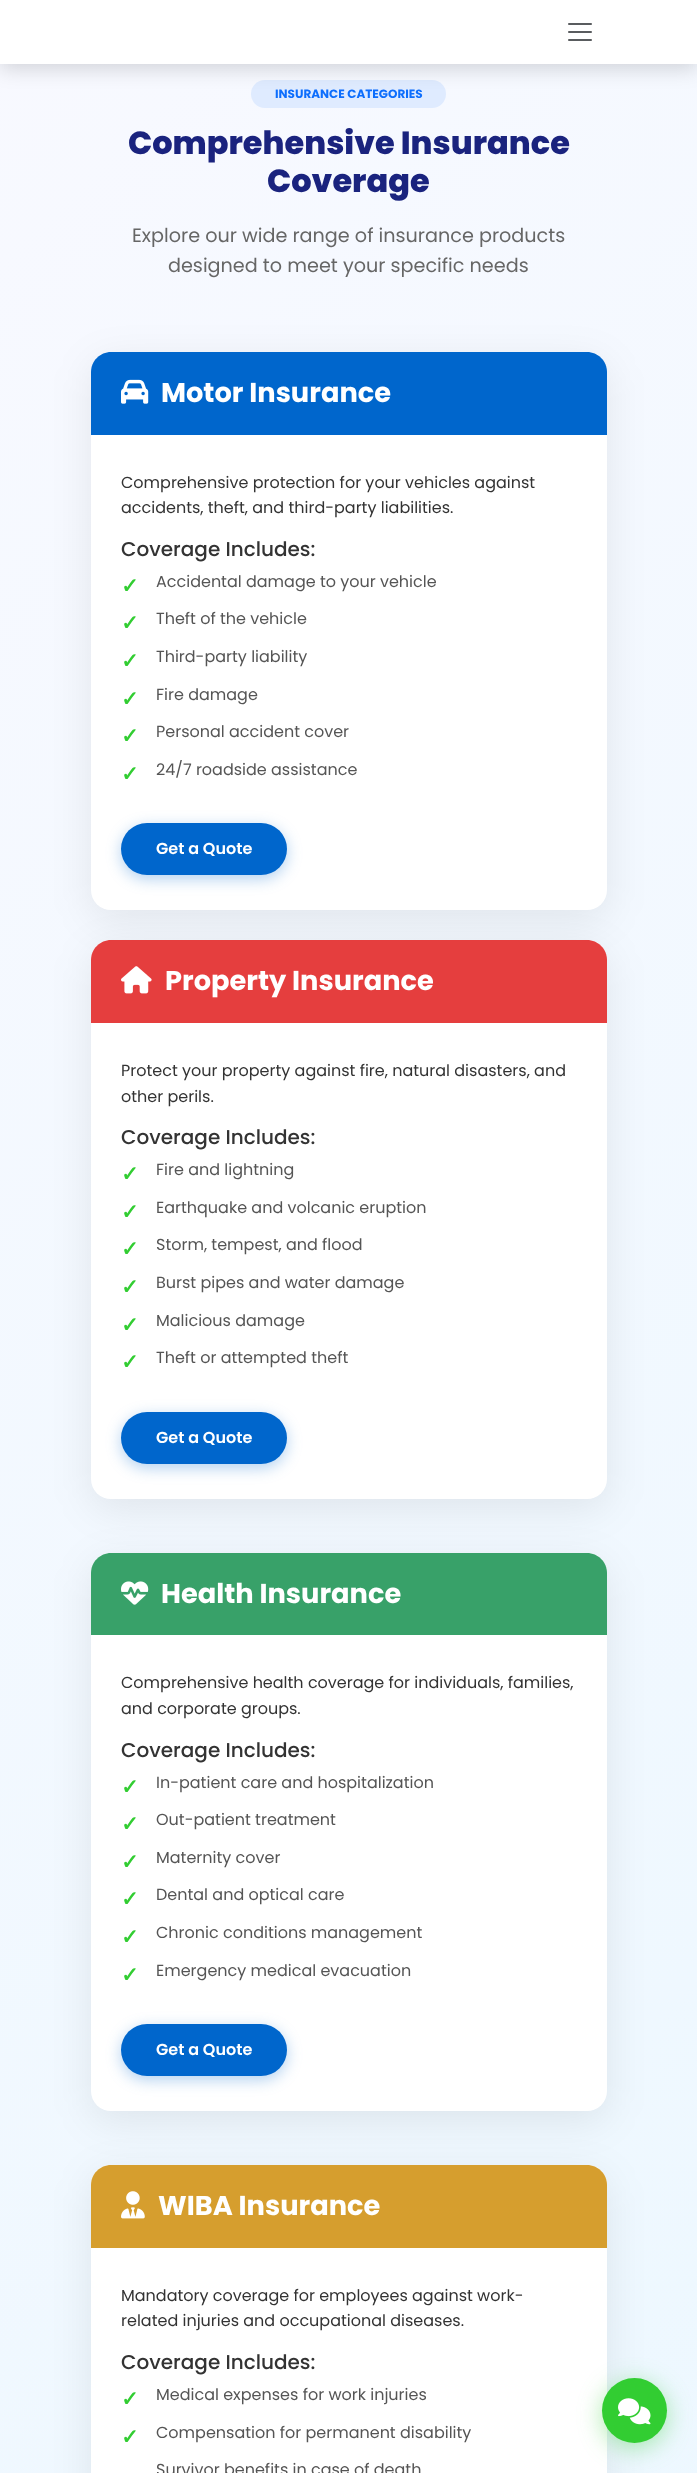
<svg xmlns="http://www.w3.org/2000/svg" width="697" height="2473" viewBox="0 0 697 2473">
  <style>
    .t1 { font: bold 12px Poppins; fill: #0d6efd; }
    .t2 { font: 800 32px Poppins; fill: #1a237e; }
    .t3 { font: 19.2px Poppins; fill: #666; }
    .t4 { font: bold 27.25px Poppins; fill: #fff; }
    .t5 { font: 16px Poppins; fill: #333; }
    .t6 { font: 500 20px Poppins; fill: #333; }
    .t7 { font: bold 21px DejaVu Sans; fill: #32cd32; }
    .t8 { font: 16px Poppins; fill: #555; }
    .t9 { font: 600 16px Poppins; fill: #fff; }
  </style>
  <defs>
    <linearGradient id="g1" gradientUnits="userSpaceOnUse" x1="-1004" y1="964" x2="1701" y2="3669"><stop offset="0" stop-color="#f8f9ff"/><stop offset="1" stop-color="#e6f7ff"/></linearGradient>
  </defs>
  <rect width="100%" height="100%" fill="#fff"/>
  <rect x="0" y="64" width="697" height="2409" fill="url(#g1)"/>
  <rect x="251" y="80" width="195" height="28" rx="14" fill="#dfebff"/>
  <rect x="0" y="5" width="697" height="64" fill="#00000026" filter="blur(10px)"/>
  <rect x="0" y="0" width="697" height="64" fill="#fff"/>
  <image x="568" y="23" width="24" height="18" href="images/1.png"/>
  <text x="275" y="98" class="t1">INSURANCE CATEGORIES</text>
  <text x="128" y="154" class="t2">Comprehensive Insurance</text>
  <text x="267" y="192" class="t2">Coverage</text>
  <text x="132" y="242" class="t3">Explore our wide range of insurance products</text>
  <text x="168" y="272" class="t3">designed to meet your specific needs</text>
  <rect x="91" y="362" width="516" height="558" rx="20" fill="#00000014" filter="blur(20px)"/>
  <rect x="91" y="352" width="516" height="558" rx="20" fill="#fff"/>
  <path d="M111 352H587C598 352 607 361 607 372V435H91V372C91 361 100 352 111 352Z" fill="#06c"/>
  <image x="121" y="379" width="28" height="25" href="images/2.png"/>
  <text x="161" y="402" class="t4">Motor Insurance</text>
  <text x="121" y="488" class="t5">Comprehensive protection for your vehicles against</text>
  <text x="121" y="513" class="t5">accidents, theft, and third-party liabilities.</text>
  <text x="121" y="556" class="t6">Coverage Includes:</text>
  <text x="121" y="593" class="t7">✓</text>
  <text x="156" y="587" class="t8">Accidental damage to your vehicle</text>
  <text x="121" y="630" class="t7">✓</text>
  <text x="156" y="624" class="t8">Theft of the vehicle</text>
  <text x="121" y="668" class="t7">✓</text>
  <text x="156" y="662" class="t8">Third-party liability</text>
  <text x="121" y="706" class="t7">✓</text>
  <text x="156" y="700" class="t8">Fire damage</text>
  <text x="121" y="743" class="t7">✓</text>
  <text x="156" y="737" class="t8">Personal accident cover</text>
  <text x="121" y="781" class="t7">✓</text>
  <text x="156" y="775" class="t8">24/7 roadside assistance</text>
  <rect x="121" y="827" width="166" height="52" rx="26" fill="#0066cc4d" filter="blur(7.5px)"/>
  <rect x="121" y="823" width="166" height="52" rx="26" fill="#06c"/>
  <text x="156" y="854" class="t9">Get a Quote</text>
  <rect x="91" y="950" width="516" height="559" rx="20" fill="#00000014" filter="blur(20px)"/>
  <rect x="91" y="940" width="516" height="559" rx="20" fill="#fff"/>
  <path d="M111 940H587C598 940 607 949 607 960V1023H91V960C91 949 100 940 111 940Z" fill="#e53e3e"/>
  <image x="121" y="966" width="31" height="28" href="images/3.png"/>
  <text x="165" y="990" class="t4">Property Insurance</text>
  <text x="121" y="1076" class="t5">Protect your property against fire, natural disasters, and</text>
  <text x="121" y="1102" class="t5">other perils.</text>
  <text x="121" y="1144" class="t6">Coverage Includes:</text>
  <text x="121" y="1181" class="t7">✓</text>
  <text x="156" y="1175" class="t8">Fire and lightning</text>
  <text x="121" y="1219" class="t7">✓</text>
  <text x="156" y="1213" class="t8">Earthquake and volcanic eruption</text>
  <text x="121" y="1256" class="t7">✓</text>
  <text x="156" y="1250" class="t8">Storm, tempest, and flood</text>
  <text x="121" y="1294" class="t7">✓</text>
  <text x="156" y="1288" class="t8">Burst pipes and water damage</text>
  <text x="121" y="1332" class="t7">✓</text>
  <text x="156" y="1326" class="t8">Malicious damage</text>
  <text x="121" y="1369" class="t7">✓</text>
  <text x="156" y="1363" class="t8">Theft or attempted theft</text>
  <rect x="121" y="1416" width="166" height="52" rx="26" fill="#0066cc4d" filter="blur(7.5px)"/>
  <rect x="121" y="1412" width="166" height="52" rx="26" fill="#06c"/>
  <text x="156" y="1443" class="t9">Get a Quote</text>
  <rect x="91" y="1563" width="516" height="558" rx="20" fill="#00000014" filter="blur(20px)"/>
  <rect x="91" y="1553" width="516" height="558" rx="20" fill="#fff"/>
  <path d="M111 1553H587C598 1553 607 1562 607 1573V1635H91V1573C91 1562 100 1553 111 1553Z" fill="#38a169"/>
  <image x="121" y="1581" width="28" height="24" href="images/4.png"/>
  <text x="161" y="1603" class="t4">Health Insurance</text>
  <text x="121" y="1688" class="t5">Comprehensive health coverage for individuals, families,</text>
  <text x="121" y="1714" class="t5">and corporate groups.</text>
  <text x="121" y="1757" class="t6">Coverage Includes:</text>
  <text x="121" y="1794" class="t7">✓</text>
  <text x="156" y="1788" class="t8">In-patient care and hospitalization</text>
  <text x="121" y="1831" class="t7">✓</text>
  <text x="156" y="1825" class="t8">Out-patient treatment</text>
  <text x="121" y="1869" class="t7">✓</text>
  <text x="156" y="1863" class="t8">Maternity cover</text>
  <text x="121" y="1906" class="t7">✓</text>
  <text x="156" y="1900" class="t8">Dental and optical care</text>
  <text x="121" y="1944" class="t7">✓</text>
  <text x="156" y="1938" class="t8">Chronic conditions management</text>
  <text x="121" y="1982" class="t7">✓</text>
  <text x="156" y="1976" class="t8">Emergency medical evacuation</text>
  <rect x="121" y="2028" width="166" height="52" rx="26" fill="#0066cc4d" filter="blur(7.5px)"/>
  <rect x="121" y="2024" width="166" height="52" rx="26" fill="#06c"/>
  <text x="156" y="2055" class="t9">Get a Quote</text>
  <rect x="91" y="2175" width="516" height="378" rx="20" fill="#00000014" filter="blur(20px)"/>
  <rect x="91" y="2165" width="516" height="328" rx="20" fill="#fff"/>
  <path d="M111 2165H587C598 2165 607 2174 607 2185V2248H91V2185C91 2174 100 2165 111 2165Z" fill="#d69e2e"/>
  <image x="121" y="2191" width="24" height="28" href="images/5.png"/>
  <text x="158" y="2215" class="t4">WIBA Insurance</text>
  <text x="121" y="2301" class="t5">Mandatory coverage for employees against work-</text>
  <text x="121" y="2326" class="t5">related injuries and occupational diseases.</text>
  <text x="121" y="2369" class="t6">Coverage Includes:</text>
  <text x="121" y="2406" class="t7">✓</text>
  <text x="156" y="2400" class="t8">Medical expenses for work injuries</text>
  <text x="121" y="2444" class="t7">✓</text>
  <text x="156" y="2438" class="t8">Compensation for permanent disability</text>
  <text x="156" y="2475" class="t8">Survivor benefits in case of death</text>
  <rect x="602" y="2383" width="65" height="65" rx="32.5" fill="#32cd3266" filter="blur(12.5px)"/>
  <circle cx="634.5" cy="2410.5" r="32.5" fill="#32cd32"/>
  <image x="618" y="2398" width="33" height="27" href="images/6.png"/>
</svg>
